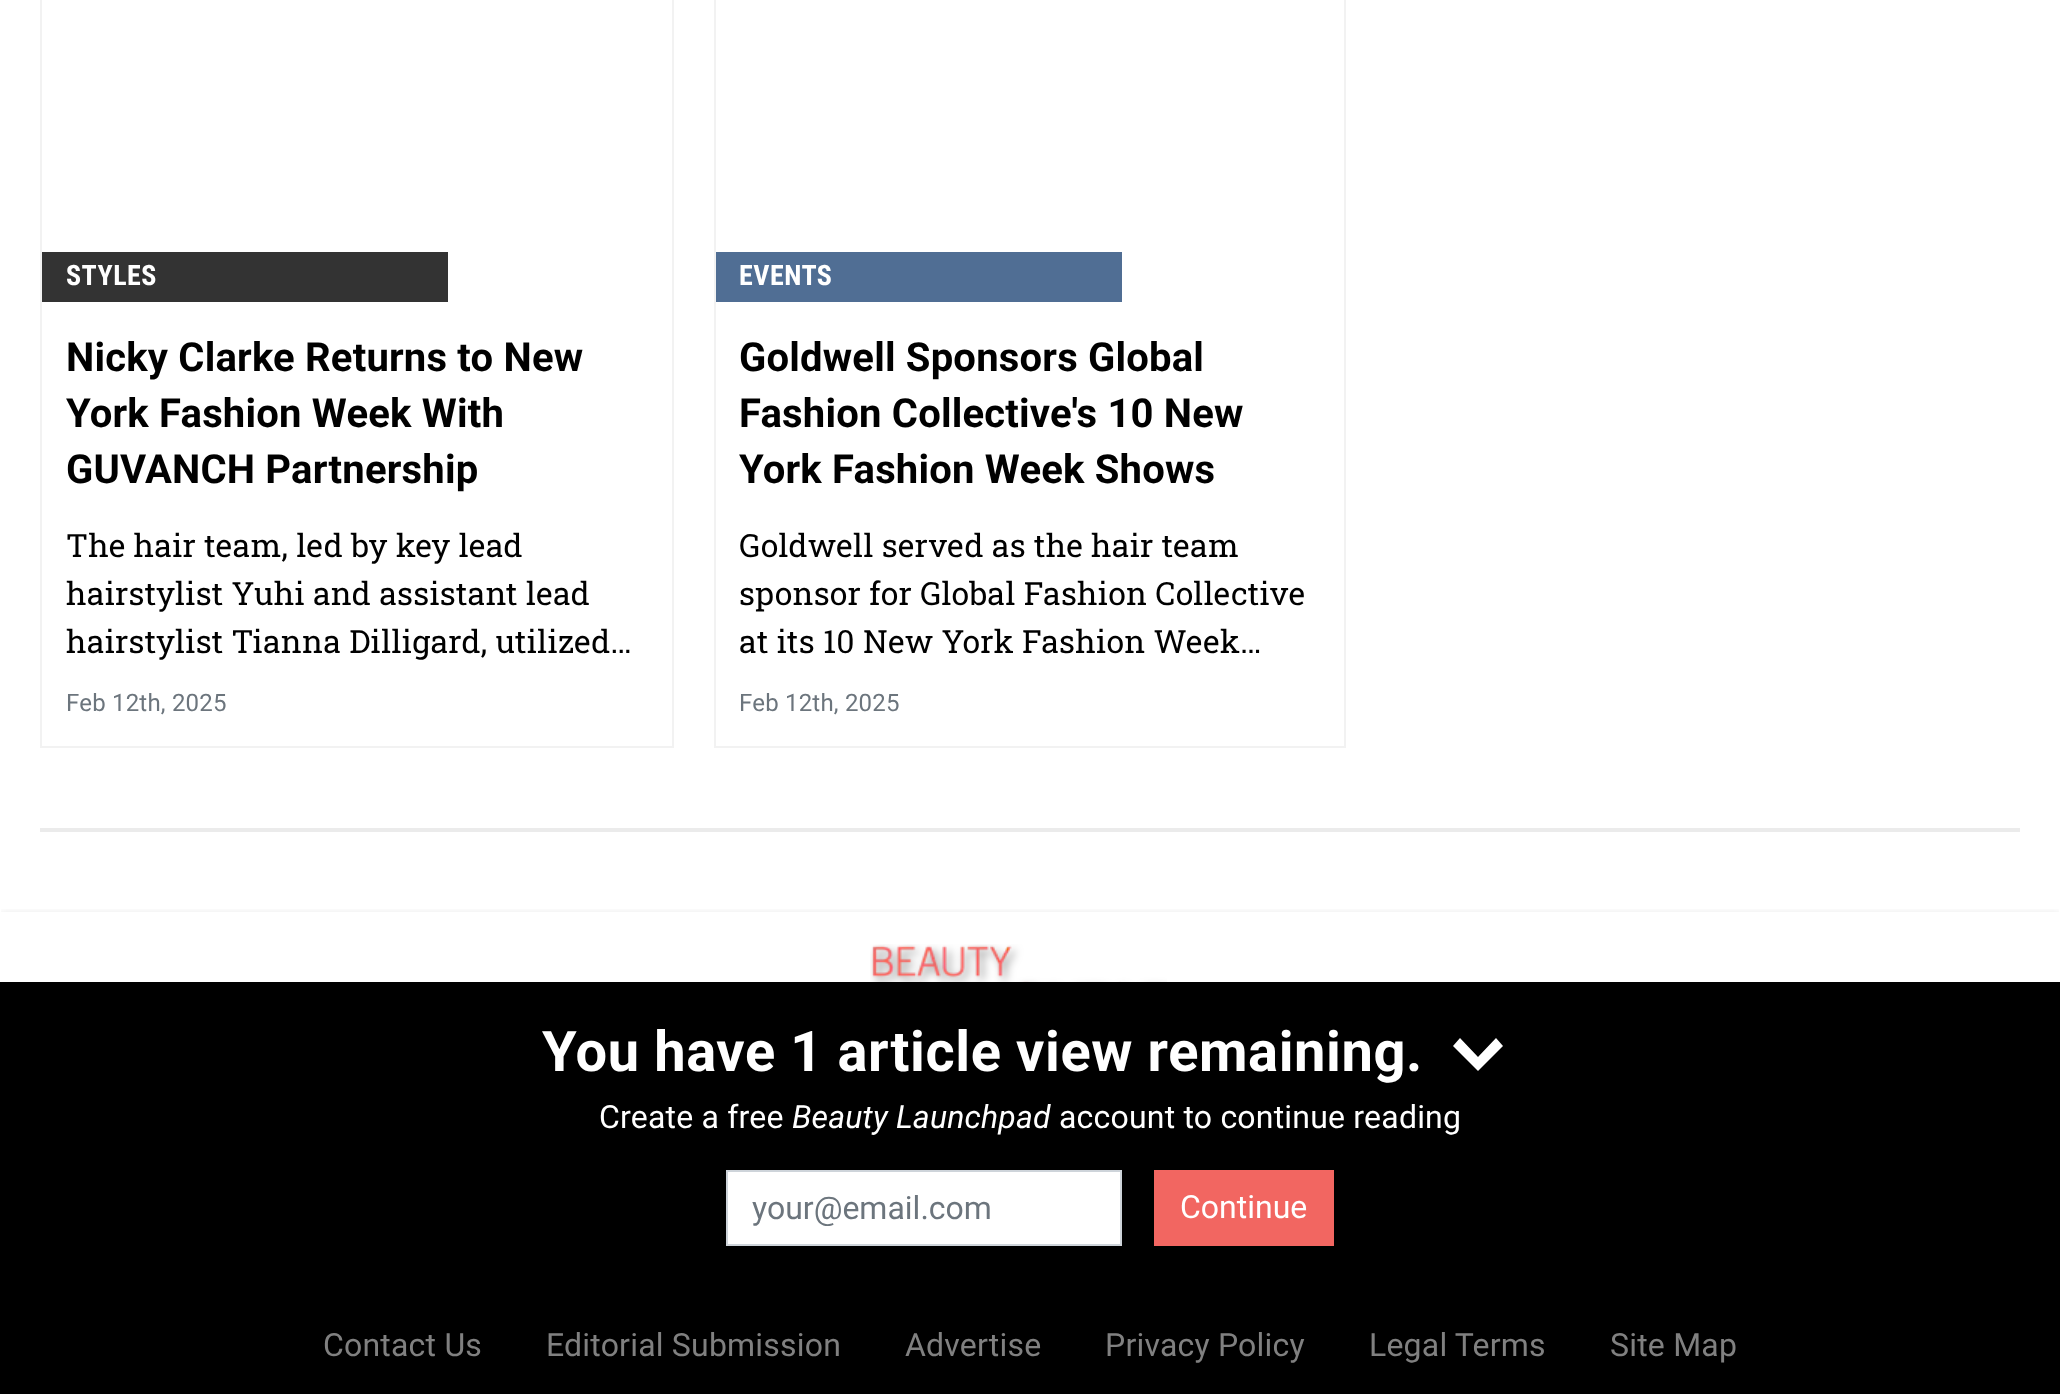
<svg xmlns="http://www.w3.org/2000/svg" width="2060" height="1394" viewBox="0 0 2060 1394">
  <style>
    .t1 { font: bold 28px Roboto Condensed; letter-spacing: 0.5px; fill: #fff; }
    .t2 { font: bold 40px Roboto; letter-spacing: 0.2px; fill: #000; }
    .t3 { font: 32px Roboto Slab; letter-spacing: 0.2px; fill: #000; }
    .t4 { font: 24px Roboto; letter-spacing: 0.2px; fill: #6c757d; }
    .t5 { font: bold 56px Roboto; letter-spacing: 0.6px; fill: #fff; }
    .t6 { font: 32px Roboto; letter-spacing: 0.2px; fill: #fff; }
    .t7 { font: italic 32px Roboto; letter-spacing: 0.2px; fill: #fff; }
    .t8 { font: 32px Roboto; fill: #6c757d; }
    .t9 { font: 32px Roboto; fill: #fff; }
    .t10 { font: 32px Roboto; letter-spacing: 0.2px; fill: #808080; }
  </style>
  <defs>
    <clipPath id="clip1"><rect x="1" y="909" width="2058" height="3"/></clipPath>
  </defs>
  <rect width="100%" height="100%" fill="#fff"/>
  <rect x="40" y="828" width="1980" height="4" fill="#ebebeb"/>
  <rect x="41" y="-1" width="632" height="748" fill="none" stroke="#f2f2f2" stroke-width="2"/>
  <rect x="42" y="252" width="406" height="50" fill="#333"/>
  <text x="66" y="285" class="t1">STYLES</text>
  <text x="66" y="371" class="t2">Nicky Clarke Returns to New</text>
  <text x="66" y="427" class="t2">York Fashion Week With</text>
  <text x="66" y="483" class="t2">GUVANCH Partnership</text>
  <text x="66" y="557" class="t3">The hair team, led by key lead</text>
  <text x="66" y="605" class="t3">hairstylist Yuhi and assistant lead</text>
  <text x="66" y="653" class="t3">hairstylist Tianna Dilligard, utilized…</text>
  <text x="66" y="711" class="t4">Feb 12th, 2025</text>
  <rect x="715" y="-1" width="630" height="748" fill="none" stroke="#f2f2f2" stroke-width="2"/>
  <rect x="716" y="252" width="406" height="50" fill="#506e94"/>
  <text x="739" y="285" class="t1">EVENTS</text>
  <text x="739" y="371" class="t2">Goldwell Sponsors Global</text>
  <text x="739" y="427" class="t2">Fashion Collective's 10 New</text>
  <text x="739" y="483" class="t2">York Fashion Week Shows</text>
  <text x="739" y="557" class="t3">Goldwell served as the hair team</text>
  <text x="739" y="605" class="t3">sponsor for Global Fashion Collective</text>
  <text x="739" y="653" class="t3">at its 10 New York Fashion Week…</text>
  <text x="739" y="711" class="t4">Feb 12th, 2025</text>
  <g clip-path="url(#clip1)">
    <rect x="0" y="914" width="2060" height="402" fill="#0000001f" filter="blur(5px)"/>
  </g>
  <image x="870" y="944" width="297" height="38" href="images/1.png"/>
  <rect x="0" y="982" width="2060" height="412" fill="#000"/>
  <text x="542" y="1071" class="t5">You have 1 article view remaining.</text>
  <path d="M1478 1071L1453 1046L1460 1038L1478 1057L1496 1038L1503 1046Z" fill="#fff" fill-rule="evenodd"/>
  <text x="599" y="1128" class="t6">Create a free</text>
  <text x="792" y="1128" class="t7">Beauty Launchpad</text>
  <text x="1059" y="1128" class="t6">account to continue reading</text>
  <rect x="727" y="1171" width="394" height="74" fill="#fff" stroke="#ced4da" stroke-width="2"/>
  <text x="752" y="1219" class="t8">your@email.com</text>
  <rect x="1154" y="1170" width="180" height="76" fill="#f26661"/>
  <text x="1180" y="1218" class="t9">Continue</text>
  <text x="323" y="1356" class="t10">Contact Us</text>
  <text x="546" y="1356" class="t10">Editorial Submission</text>
  <text x="905" y="1356" class="t10">Advertise</text>
  <text x="1105" y="1356" class="t10">Privacy Policy</text>
  <text x="1369" y="1356" class="t10">Legal Terms</text>
  <text x="1610" y="1356" class="t10">Site Map</text>
</svg>
